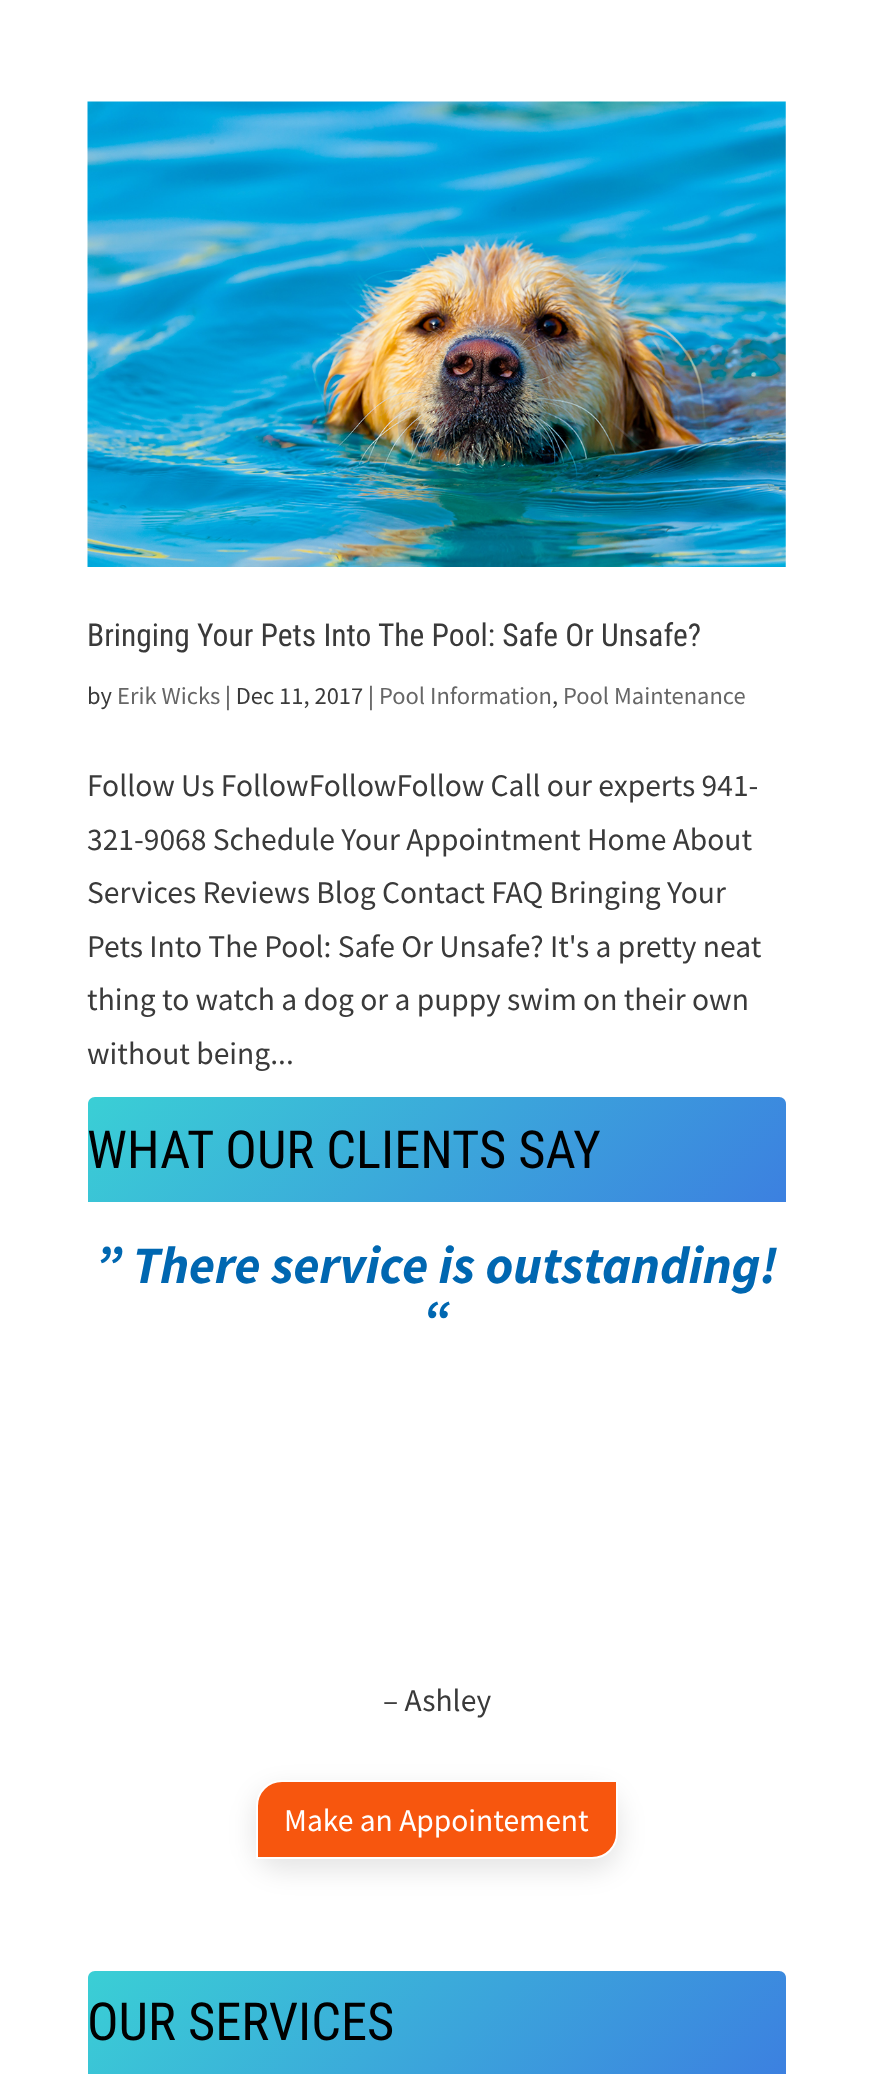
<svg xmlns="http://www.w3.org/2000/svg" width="873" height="2074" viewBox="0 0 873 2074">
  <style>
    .t1 { font: 31.5px Roboto Condensed; fill: #3a3a3a; }
    .t2 { font: 24.5px Source Sans Pro; fill: #3a3a3a; }
    .t3 { font: 24.5px Source Sans Pro; fill: #666; }
    .t4 { font: 31.5px Source Sans Pro; fill: #3a3a3a; }
    .t5 { font: 52.5px Roboto Condensed; fill: #000; }
    .t6 { font: italic bold 52.5px Source Sans Pro; fill: #0067b1; }
    .t7 { font: 31.5px Source Sans Pro; fill: #fff; }
  </style>
  <defs>
    <linearGradient id="g1" gradientUnits="userSpaceOnUse" x1="236" y1="949" x2="637" y2="1351"><stop offset="0" stop-color="#3acfd5"/><stop offset="1" stop-color="#3c80e0"/></linearGradient>
    <linearGradient id="g2" gradientUnits="userSpaceOnUse" x1="236" y1="1822" x2="637" y2="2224"><stop offset="0" stop-color="#3acfd5"/><stop offset="1" stop-color="#3c80e0"/></linearGradient>
  </defs>
  <rect width="100%" height="100%" fill="#fff"/>
  <image x="87" y="101" width="699" height="466" href="images/1.png"/>
  <text x="87" y="646" class="t1">Bringing Your Pets Into The Pool: Safe Or Unsafe?</text>
  <text x="87" y="704" class="t2">by</text>
  <text x="117" y="704" class="t3">Erik Wicks</text>
  <text x="225" y="704" class="t2">| Dec 11, 2017 |</text>
  <text x="379" y="704" class="t3">Pool Information</text>
  <text x="552" y="704" class="t2">,</text>
  <text x="563" y="704" class="t3">Pool Maintenance</text>
  <text x="87" y="796" class="t4">Follow Us FollowFollowFollow Call our experts 941-</text>
  <text x="87" y="850" class="t4">321-9068 Schedule Your Appointment Home About</text>
  <text x="87" y="903" class="t4">Services Reviews Blog Contact FAQ Bringing Your</text>
  <text x="87" y="957" class="t4">Pets Into The Pool: Safe Or Unsafe? It's a pretty neat</text>
  <text x="87" y="1010" class="t4">thing to watch a dog or a puppy swim on their own</text>
  <text x="87" y="1064" class="t4">without being...</text>
  <path d="M95 1097H779C783 1097 786 1100 786 1104V1202H88V1104C88 1100 91 1097 95 1097Z" fill="url(#g1)"/>
  <text x="87" y="1168" class="t5">WHAT OUR CLIENTS SAY</text>
  <text x="95" y="1283" class="t6">” There service is outstanding!</text>
  <text x="423" y="1337" class="t6">“</text>
  <text x="383" y="1711" class="t4">– Ashley</text>
  <rect x="254" y="1789" width="366" height="82" rx="28" fill="#0000001a" filter="blur(13px)"/>
  <path d="M282 1781H617V1833C617 1847 606 1858 592 1858H257V1806C257 1792 268 1781 282 1781Z" fill="#f7560e" stroke="#fff" stroke-width="2"/>
  <text x="284" y="1831" class="t7">Make an Appointement</text>
  <path d="M95 1971H779C783 1971 786 1974 786 1978V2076H88V1978C88 1974 91 1971 95 1971Z" fill="url(#g2)"/>
  <text x="87" y="2040" class="t5">OUR SERVICES</text>
</svg>
